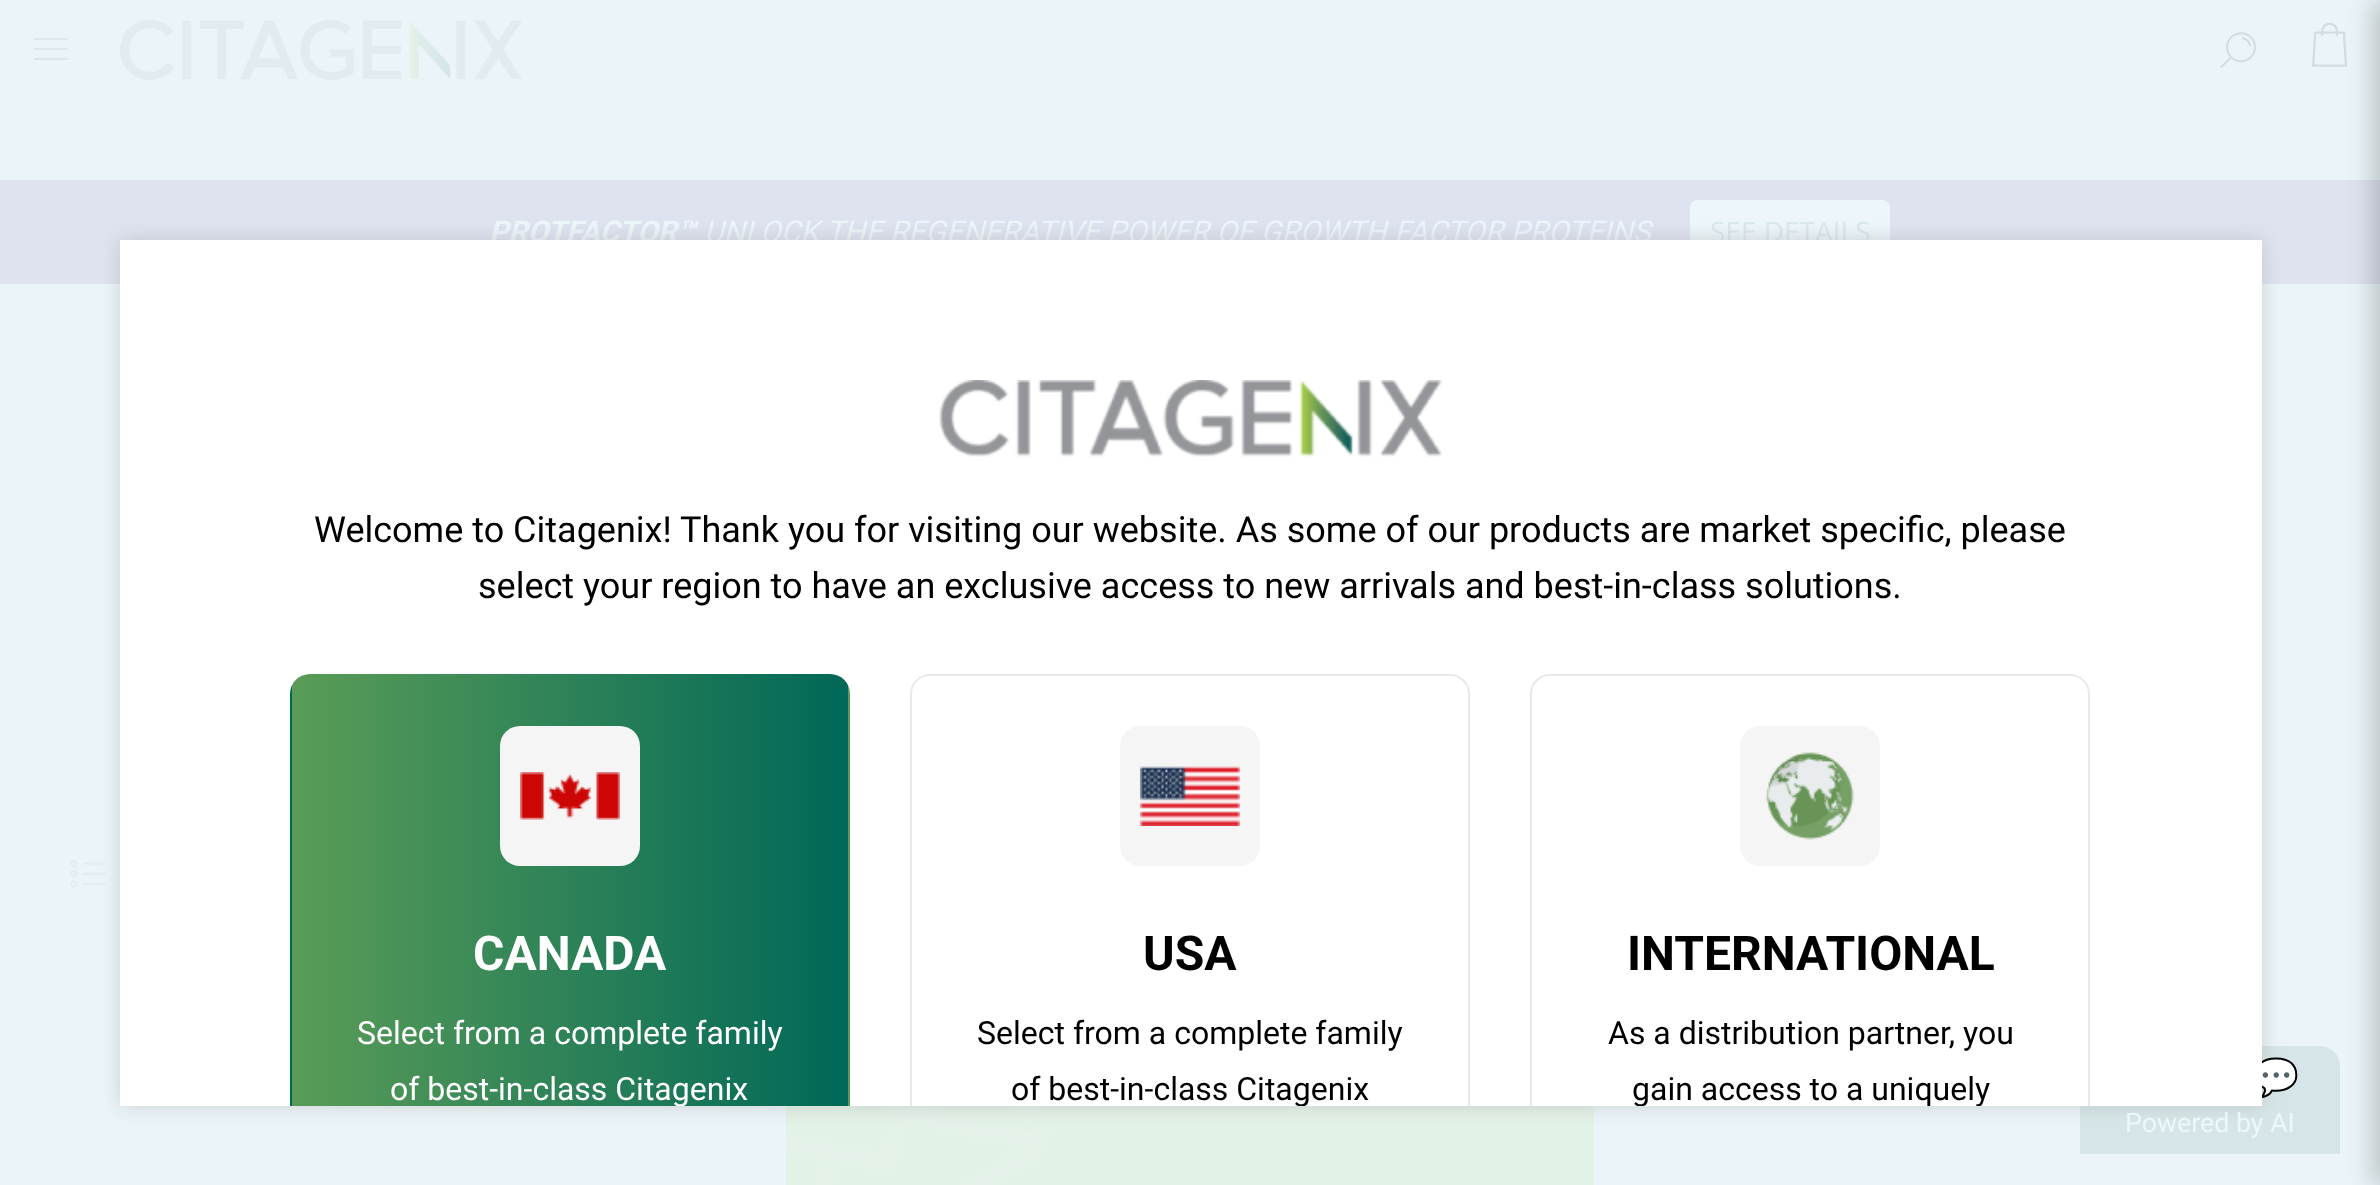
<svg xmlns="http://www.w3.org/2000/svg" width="2380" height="1185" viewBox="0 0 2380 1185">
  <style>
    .t1 { font: italic bold 30px Roboto; fill: #ecf6fb; }
    .t2 { font: italic 30px Roboto; fill: #ecf6fb; }
    .t3 { font: 28px Open Sans; fill: #d8e9ed; }
    .t4 { font: 37px Noto Color Emoji; fill: #ecf6fb; }
    .t5 { font: 36px Roboto; fill: #000; }
    .t6 { font: bold 48px Roboto; fill: #fff; }
    .t7 { font: 32px Roboto; fill: #fff; }
    .t8 { font: bold 48px Roboto; fill: #000; }
    .t9 { font: 32px Roboto; fill: #000; }
    .t10 { font: 26.75px Roboto; fill: #ecf6fb; }
  </style>
  <defs>
    <clipPath id="clip1"><rect x="290" y="674" width="560" height="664" rx="20"/></clipPath>
    <linearGradient id="g1" gradientUnits="userSpaceOnUse" x1="-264" y1="1006" x2="292" y2="1006"><stop offset="0" stop-color="#5a9c57"/><stop offset="1" stop-color="#006858"/></linearGradient>
    <linearGradient id="g2" gradientUnits="userSpaceOnUse" x1="292" y1="1006" x2="848" y2="1006"><stop offset="0" stop-color="#5a9c57"/><stop offset="1" stop-color="#006858"/></linearGradient>
    <linearGradient id="g3" gradientUnits="userSpaceOnUse" x1="848" y1="1006" x2="1404" y2="1006"><stop offset="0" stop-color="#5a9c57"/><stop offset="1" stop-color="#006858"/></linearGradient>
    <clipPath id="clip2"><rect x="120" y="240" width="2142" height="866"/></clipPath>
  </defs>
  <rect width="100%" height="100%" fill="#ebf5f9"/>
  <rect x="0" y="180" width="2380" height="104" fill="#dfe3f0"/>
  <text x="489" y="242" class="t1">PROTFACTOR™</text>
  <text x="704" y="242" class="t2">UNLOCK THE REGENERATIVE POWER OF GROWTH FACTOR PROTEINS</text>
  <rect x="1690" y="200" width="200" height="62" rx="8" fill="#ecf6fb"/>
  <text x="1710" y="242" class="t3">SEE DETAILS</text>
  <image x="2312" y="22" width="36" height="45" href="images/4.png"/>
  <path d="M2100 1046H2320C2331 1046 2340 1055 2340 1066V1154H2080V1066C2080 1055 2089 1046 2100 1046Z" fill="#d6e6e8"/>
  <rect x="2372" y="0" width="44" height="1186" fill="#00000033" filter="blur(12px)"/>
  <image x="70" y="859" width="36" height="29" href="images/1.png"/>
  <image x="120" y="20" width="402" height="60" href="images/2.png"/>
  <image x="2220" y="32" width="36" height="37" href="images/3.png"/>
  <rect x="34" y="38" width="34" height="2" fill="#dde7eb"/>
  <rect x="34" y="48" width="34" height="2" fill="#dde7eb"/>
  <rect x="34" y="58" width="34" height="2" fill="#dde7eb"/>
  <rect x="786" y="1106" width="808" height="79" fill="#e3f2e7"/>
  <image x="786" y="1106" width="264" height="79" href="images/9.png"/>
  <rect x="120" y="240" width="2142" height="866" fill="#aaaaaa80" filter="blur(10px)"/>
  <text x="2253" y="1090" class="t4">💬</text>
  <rect x="120" y="240" width="2142" height="866" fill="#fff"/>
  <image x="939" y="380" width="503" height="77" href="images/5.png"/>
  <text x="314" y="542" class="t5">Welcome to Citagenix! Thank you for visiting our website. As some of our products are market specific, please</text>
  <text x="478" y="598" class="t5">select your region to have an exclusive access to new arrivals and best-in-class solutions.</text>
  <g clip-path="url(#clip1)">
    <rect x="290" y="685" width="2" height="421" fill="url(#g1)"/>
    <rect x="292" y="674" width="556" height="432" fill="url(#g2)"/>
    <rect x="848" y="685" width="2" height="421" fill="url(#g3)"/>
  </g>
  <rect x="500" y="726" width="140" height="140" rx="20" fill="#f5f5f5"/>
  <image x="520" y="772" width="100" height="48" href="images/6.png"/>
  <text x="473" y="970" class="t6">CANADA</text>
  <text x="357" y="1044" class="t7">Select from a complete family</text>
  <g clip-path="url(#clip2)">
    <text x="390" y="1100" class="t7">of best-in-class Citagenix</text>
    <rect x="911" y="675" width="558" height="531" rx="19" fill="none" stroke="#e9e9e9" stroke-width="2"/>
  </g>
  <rect x="1120" y="726" width="140" height="140" rx="20" fill="#f5f5f5"/>
  <image x="1140" y="766" width="100" height="60" href="images/7.png"/>
  <text x="1143" y="970" class="t8">USA</text>
  <text x="977" y="1044" class="t9">Select from a complete family</text>
  <g clip-path="url(#clip2)">
    <text x="1011" y="1100" class="t9">of best-in-class Citagenix</text>
    <rect x="1531" y="675" width="558" height="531" rx="19" fill="none" stroke="#e9e9e9" stroke-width="2"/>
  </g>
  <rect x="1740" y="726" width="140" height="140" rx="20" fill="#f5f5f5"/>
  <image x="1766" y="752" width="88" height="88" href="images/8.png"/>
  <text x="1627" y="970" class="t8">INTERNATIONAL</text>
  <text x="1608" y="1044" class="t9">As a distribution partner, you</text>
  <g clip-path="url(#clip2)">
    <text x="1632" y="1100" class="t9">gain access to a uniquely</text>
  </g>
  <text x="2125" y="1132" class="t10">Powered by AI</text>
</svg>
